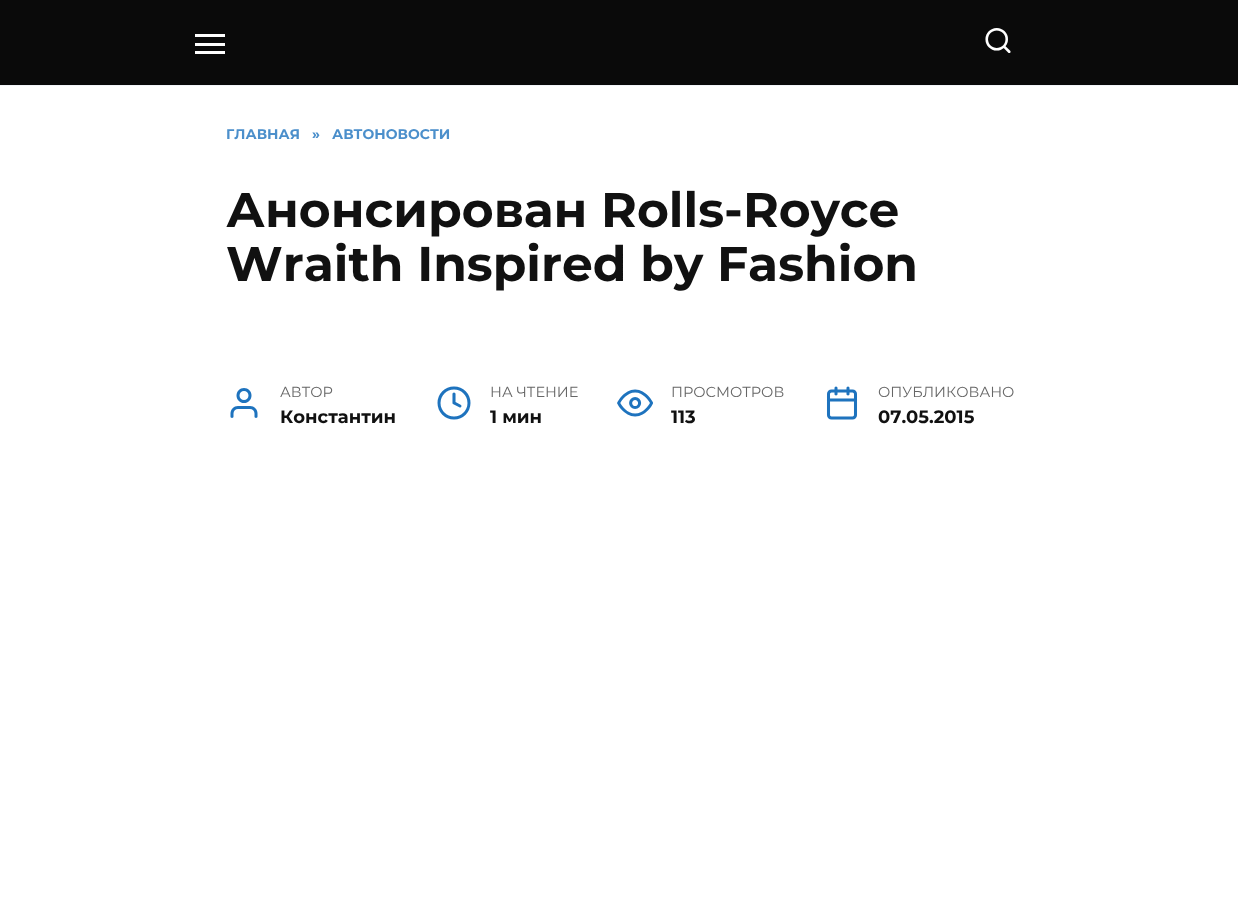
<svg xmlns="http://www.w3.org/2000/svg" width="1238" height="908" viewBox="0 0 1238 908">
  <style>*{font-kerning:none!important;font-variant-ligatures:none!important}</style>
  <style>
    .t1 { font: 30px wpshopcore; fill: #fff; }
    .t2 { font: bold 14px Montserrat; fill: #4b8fcb; }
    .t3 { font: bold 48.75px Montserrat; fill: #111; }
    .t4 { font: 36px wpshopcore; fill: #1e73be; }
    .t5 { font: 14.5px Montserrat; fill: #666; }
    .t6 { font: bold 18px Montserrat; fill: #111; }
  </style>
  <rect width="100%" height="100%" fill="#fff"/>
  <rect x="0" y="0" width="1238" height="85" fill="#0a0a0a"/>
  <rect x="0" y="85" width="1238" height="1" fill="#f2f5f9"/>
  <rect x="195" y="34" width="30" height="3" fill="#fff"/>
  <rect x="195" y="43" width="30" height="3" fill="#fff"/>
  <rect x="195" y="51" width="30" height="3" fill="#fff"/>
  <text x="983" y="53" class="t1">🔍</text>
  <text x="226" y="139" class="t2">ГЛАВНАЯ</text>
  <text x="312" y="139" class="t2">»</text>
  <text x="332" y="139" class="t2">АВТОНОВОСТИ</text>
  <text x="226" y="227" class="t3">Анонсирован Rolls-Royce</text>
  <text x="226" y="281" class="t3">Wraith Inspired by Fashion</text>
  <text x="226" y="418" class="t4">👤</text>
  <text x="280" y="397" class="t5">АВТОР</text>
  <text x="280" y="423" class="t6">Константин</text>
  <text x="436" y="418" class="t4">🕒</text>
  <text x="490" y="397" class="t5">НА ЧТЕНИЕ</text>
  <text x="490" y="423" class="t6">1 мин</text>
  <text x="617" y="418" class="t4">👀</text>
  <text x="671" y="397" class="t5">ПРОСМОТРОВ</text>
  <text x="671" y="423" class="t6">113</text>
  <text x="824" y="418" class="t4">📅</text>
  <text x="878" y="397" class="t5">ОПУБЛИКОВАНО</text>
  <text x="878" y="423" class="t6">07.05.2015</text>
</svg>
